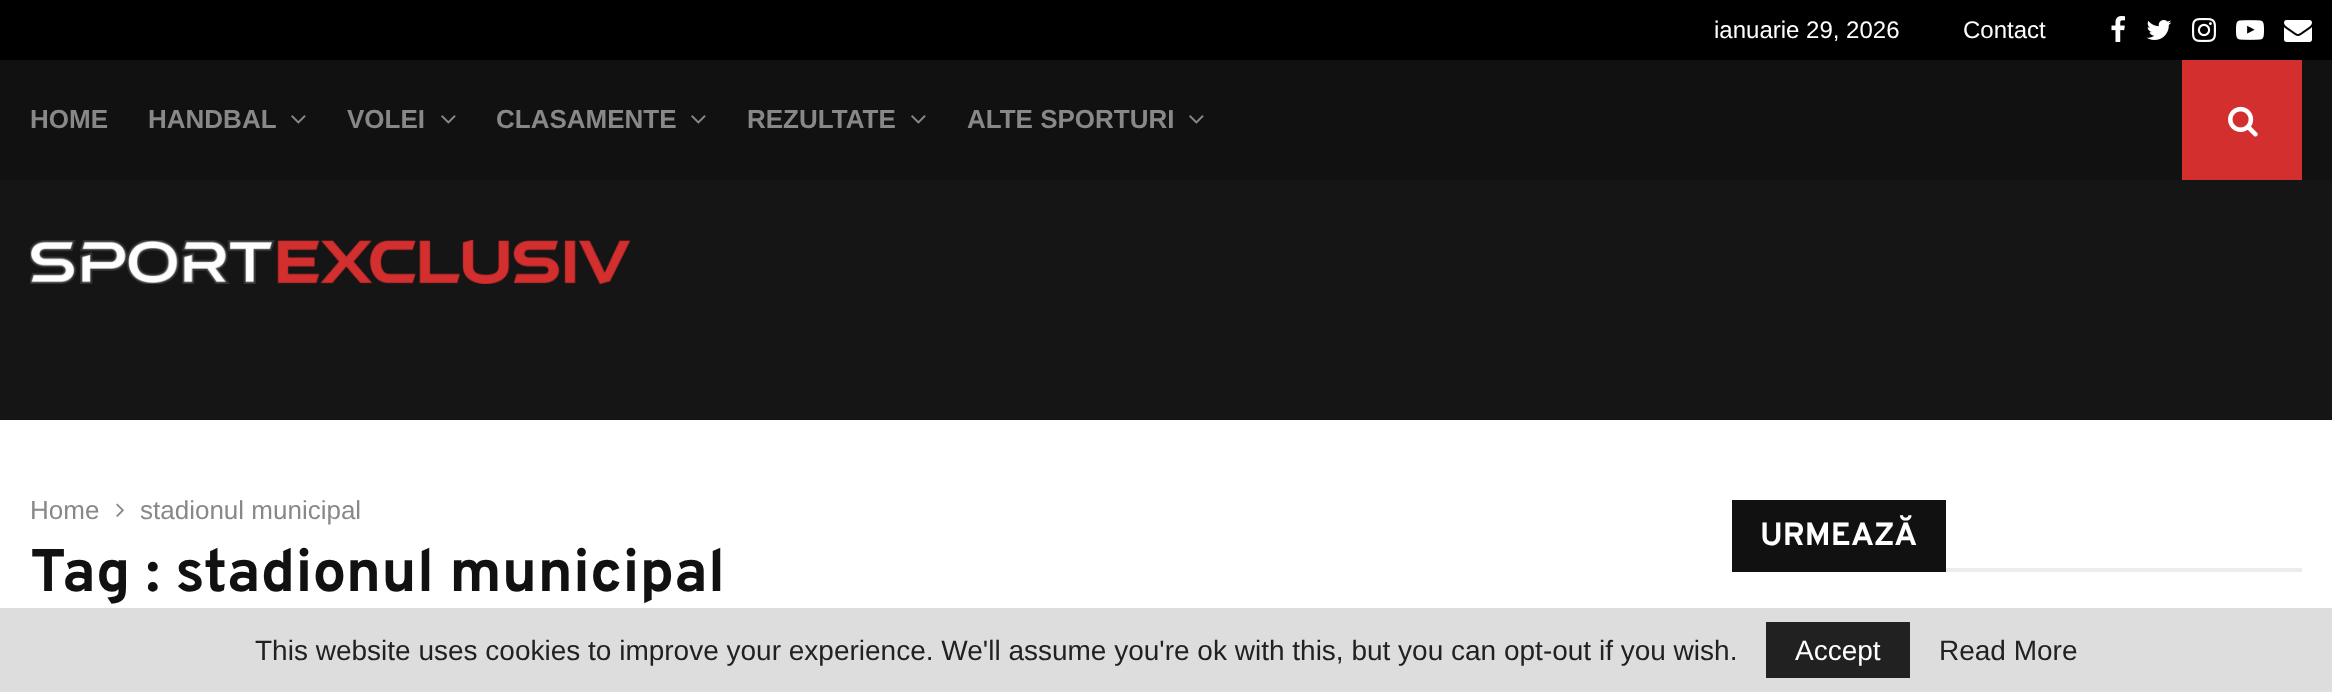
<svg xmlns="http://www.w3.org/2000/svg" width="2332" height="692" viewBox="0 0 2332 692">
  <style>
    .t1 { font: 24px Liberation Sans; fill: #fff; }
    .t2 { font: bold 26px Liberation Sans; fill: #888; }
    .t3 { font: 26px Liberation Sans; fill: #888; }
    .t4 { font: bold 60px Overpass; fill: #111; }
    .t5 { font: bold 32px Overpass; fill: #fff; }
    .t6 { font: 28px Liberation Sans; fill: #212121; }
    .t7 { font: 28px Liberation Sans; fill: #fff; }
  </style>
  <rect width="100%" height="100%" fill="#fff"/>
  <rect x="0" y="0" width="2332" height="60" fill="#000"/>
  <text x="1714" y="38" class="t1">ianuarie 29, 2026</text>
  <text x="1963" y="38" class="t1">Contact</text>
  <image x="2111" y="16" width="14" height="26" href="images/1.png"/>
  <image x="2146" y="20" width="26" height="20" href="images/2.png"/>
  <image x="2192" y="18" width="24" height="24" href="images/3.png"/>
  <image x="2236" y="20" width="28" height="20" href="images/4.png"/>
  <image x="2284" y="20" width="28" height="22" href="images/5.png"/>
  <rect x="0" y="60" width="2332" height="120" fill="#111"/>
  <text x="30" y="128" class="t2">HOME</text>
  <text x="148" y="128" class="t2">HANDBAL</text>
  <image x="291" y="115" width="15" height="9" href="images/6.png"/>
  <text x="347" y="128" class="t2">VOLEI</text>
  <image x="441" y="115" width="15" height="9" href="images/6.png"/>
  <text x="496" y="128" class="t2">CLASAMENTE</text>
  <image x="691" y="115" width="15" height="9" href="images/6.png"/>
  <text x="747" y="128" class="t2">REZULTATE</text>
  <image x="911" y="115" width="15" height="9" href="images/6.png"/>
  <text x="967" y="128" class="t2">ALTE SPORTURI</text>
  <image x="1189" y="115" width="15" height="9" href="images/6.png"/>
  <rect x="2182" y="60" width="120" height="120" fill="#d32f2f"/>
  <image x="2228" y="106" width="30" height="31" href="images/7.png"/>
  <rect x="0" y="180" width="2332" height="240" fill="#151515"/>
  <image x="30" y="240" width="600" height="44" href="images/8.png"/>
  <text x="30" y="519" class="t3">Home</text>
  <image x="116" y="503" width="8" height="14" href="images/9.png"/>
  <text x="140" y="519" class="t3">stadionul municipal</text>
  <text x="30" y="591" class="t4">Tag : stadionul municipal</text>
  <rect x="1946" y="568" width="356" height="4" fill="#ececec"/>
  <rect x="1732" y="500" width="214" height="72" fill="#111"/>
  <text x="1760" y="545" class="t5">URMEAZĂ</text>
  <rect x="0" y="608" width="2332" height="84" fill="#ddd"/>
  <text x="255" y="660" class="t6">This website uses cookies to improve your experience. We'll assume you're ok with this, but you can opt-out if you wish.</text>
  <rect x="1766" y="622" width="144" height="56" fill="#212121"/>
  <text x="1795" y="660" class="t7">Accept</text>
  <text x="1939" y="660" class="t6">Read More</text>
</svg>
